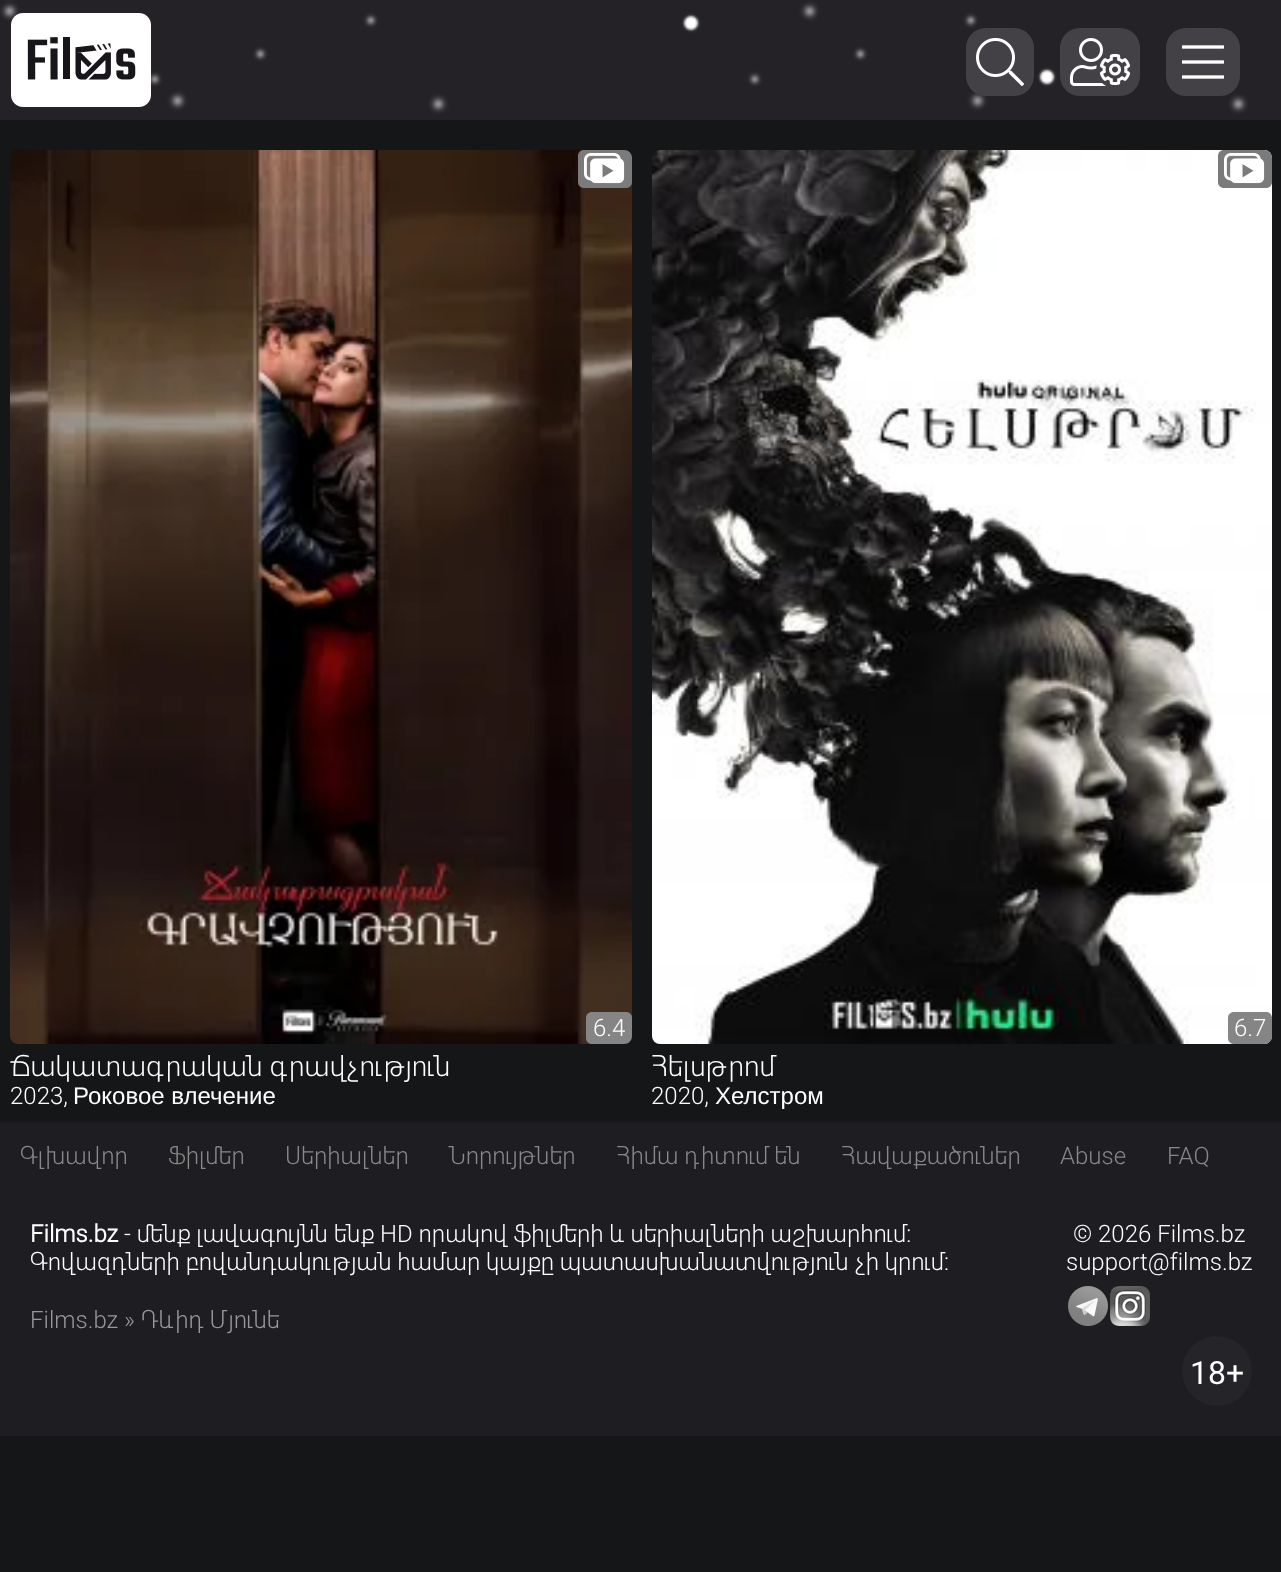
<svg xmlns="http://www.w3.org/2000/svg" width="1281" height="1572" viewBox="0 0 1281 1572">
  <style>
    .t1 { font: 300 24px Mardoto; fill: #fff; }
    .t2 { font: 300 28px Mardoto; fill: #fff; }
    .t3 { font: 24px Liberation Sans; fill: #fff; }
    .t4 { font: 300 24px Mardoto; fill: #888; }
    .t5 { font: bold 24px Mardoto; fill: #fff; }
    .t6 { font: 32px Roboto; fill: #fff; }
    .t7 { font: 300 24px Mardoto; fill: #989898; }
  </style>
  <rect width="100%" height="100%" fill="#151617"/>
  <rect x="0" y="0" width="1281" height="120" fill="#242227"/>
  <image x="0" y="0" width="1248" height="114" href="images/1.png"/>
  <image x="11" y="13" width="140" height="94" href="images/2.png"/>
  <rect x="966" y="28" width="68" height="68" rx="20" fill="#434146"/>
  <image x="976" y="38" width="48" height="48" href="images/3.png"/>
  <rect x="1060" y="28" width="80" height="68" rx="20" fill="#434146"/>
  <image x="1070" y="38" width="60" height="48" href="images/4.png"/>
  <rect x="1166" y="28" width="74" height="68" rx="20" fill="#434146"/>
  <image x="1182" y="45" width="42" height="34" href="images/5.png"/>
  <image x="10" y="150" width="622" height="894" href="images/6.png"/>
  <path d="M584 150H624C628.5 150 632 153.5 632 158V182C632 185.5 629.5 188 626 188H584C580.5 188 578 185.5 578 182V156C578 152.5 580.5 150 584 150Z" fill="#7b7b7b"/>
  <image x="584" y="153" width="41" height="31" href="images/7.png"/>
  <path d="M592 1012H626C629.5 1012 632 1014.5 632 1018V1036C632 1040.5 628.5 1044 624 1044H592C588.5 1044 586 1041.5 586 1038V1018C586 1014.5 588.5 1012 592 1012Z" fill="#858585"/>
  <text x="593" y="1036" class="t1">6.4</text>
  <text x="10" y="1076" class="t2">Ճակատագրական գրավչություն</text>
  <text x="10" y="1104" class="t1">2023,</text>
  <text x="73" y="1104" class="t3">Роковое влечение</text>
  <image x="652" y="150" width="620" height="894" href="images/8.png"/>
  <path d="M1224 150H1264C1268.5 150 1272 153.5 1272 158V182C1272 185.5 1269.5 188 1266 188H1224C1220.5 188 1218 185.5 1218 182V156C1218 152.5 1220.5 150 1224 150Z" fill="#7b7b7b"/>
  <image x="1224" y="153" width="41" height="31" href="images/7.png"/>
  <path d="M1234 1012H1266C1269.5 1012 1272 1014.5 1272 1018V1036C1272 1040.5 1268.5 1044 1264 1044H1234C1230.5 1044 1228 1041.5 1228 1038V1018C1228 1014.5 1230.5 1012 1234 1012Z" fill="#858585"/>
  <text x="1234" y="1036" class="t1">6.7</text>
  <text x="651" y="1076" class="t2">Հելսթրոմ</text>
  <text x="651" y="1104" class="t1">2020,</text>
  <text x="715" y="1104" class="t3">Хелстром</text>
  <rect x="0" y="1122" width="1281" height="314" fill="#1e1d21"/>
  <text x="20" y="1164" class="t4">Գլխավոր</text>
  <text x="168" y="1164" class="t4">Ֆիլմեր</text>
  <text x="285" y="1164" class="t4">Սերիալներ</text>
  <text x="448" y="1164" class="t4">Նորույթներ</text>
  <text x="616" y="1164" class="t4">Հիմա դիտում են</text>
  <text x="841" y="1164" class="t4">Հավաքածուներ</text>
  <text x="1060" y="1164" class="t4">Abuse</text>
  <text x="1167" y="1164" class="t4">FAQ</text>
  <text x="30" y="1242" class="t5">Films.bz</text>
  <text x="124" y="1242" class="t1">- մենք լավագույնն ենք HD որակով ֆիլմերի և սերիալների աշխարհում:</text>
  <text x="30" y="1270" class="t1">Գովազդների բովանդակության համար կայքը պատասխանատվություն չի կրում:</text>
  <text x="1073" y="1242" class="t1">© 2026 Films.bz</text>
  <text x="1066" y="1270" class="t1">support@films.bz</text>
  <image x="1068" y="1286" width="40" height="40" href="images/9.png"/>
  <image x="1110" y="1286" width="40" height="40" href="images/10.png"/>
  <circle cx="1217" cy="1371" r="35" fill="#252428"/>
  <text x="1190" y="1384" class="t6">18+</text>
  <text x="30" y="1328" class="t7">Films.bz » Դևիդ Մյունե</text>
</svg>
